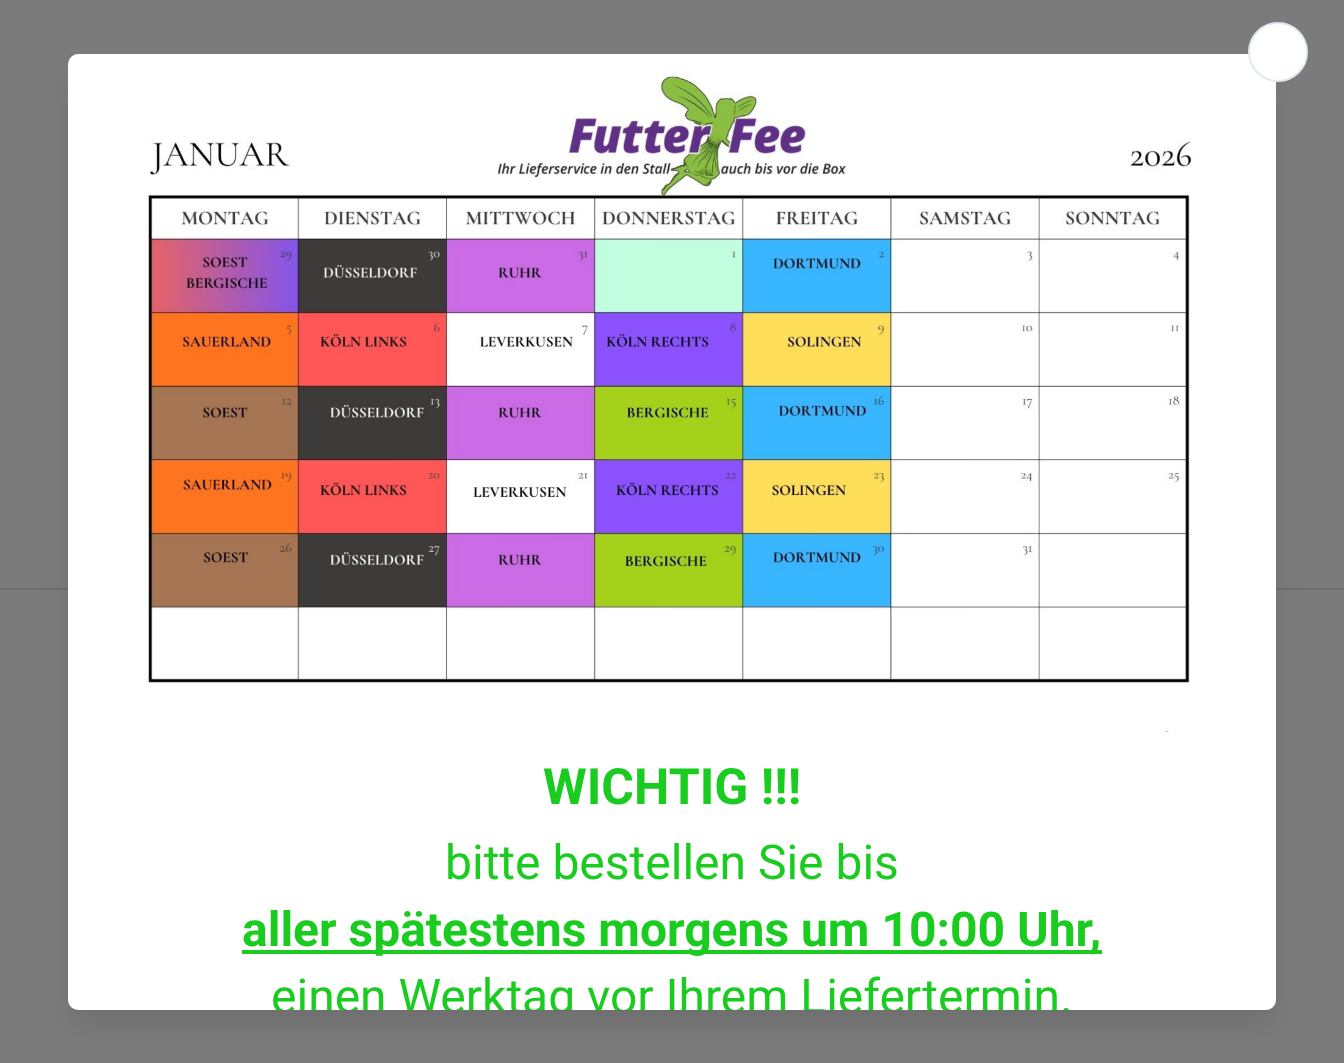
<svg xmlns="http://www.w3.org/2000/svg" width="1344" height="1063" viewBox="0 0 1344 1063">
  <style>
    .t1 { font: bold 50px Roboto; fill: #1acb20; }
    .t2 { font: 48px Roboto; fill: #1acb20; }
    .t3 { font: bold 48px Roboto; fill: #1acb20; }
  </style>
  <defs>
    <clipPath id="clip1"><rect x="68" y="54" width="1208" height="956"/></clipPath>
    <clipPath id="clip2"><rect x="68" y="54" width="1208" height="956" rx="10"/></clipPath>
  </defs>
  <rect width="100%" height="100%" fill="#7b7b7b"/>
  <rect x="0" y="588" width="1344" height="2" fill="#6f6f6f"/>
  <rect x="74" y="80" width="1196" height="944" rx="4" fill="#0000001a" filter="blur(15px)"/>
  <g clip-path="url(#clip1)">
    <rect x="74" y="60" width="1196" height="944" rx="4" fill="#0000001f" filter="blur(20px)"/>
  </g>
  <rect x="68" y="54" width="1208" height="956" rx="10" fill="#fff"/>
  <circle cx="1278" cy="52" r="29" fill="#fff" stroke="#e2e8f0" stroke-width="2"/>
  <image x="144" y="72" width="1050" height="660" href="images/1.png"/>
  <text x="543" y="804" class="t1">WICHTIG !!!</text>
  <text x="445" y="879" class="t2">bitte bestellen Sie bis</text>
  <rect x="242" y="950" width="860" height="4" fill="#1acb20"/>
  <text x="242" y="946" class="t3">aller spätestens morgens um 10:00 Uhr,</text>
  <g clip-path="url(#clip2)">
    <text x="271" y="1013" class="t2">einen Werktag vor Ihrem Liefertermin.</text>
  </g>
</svg>
